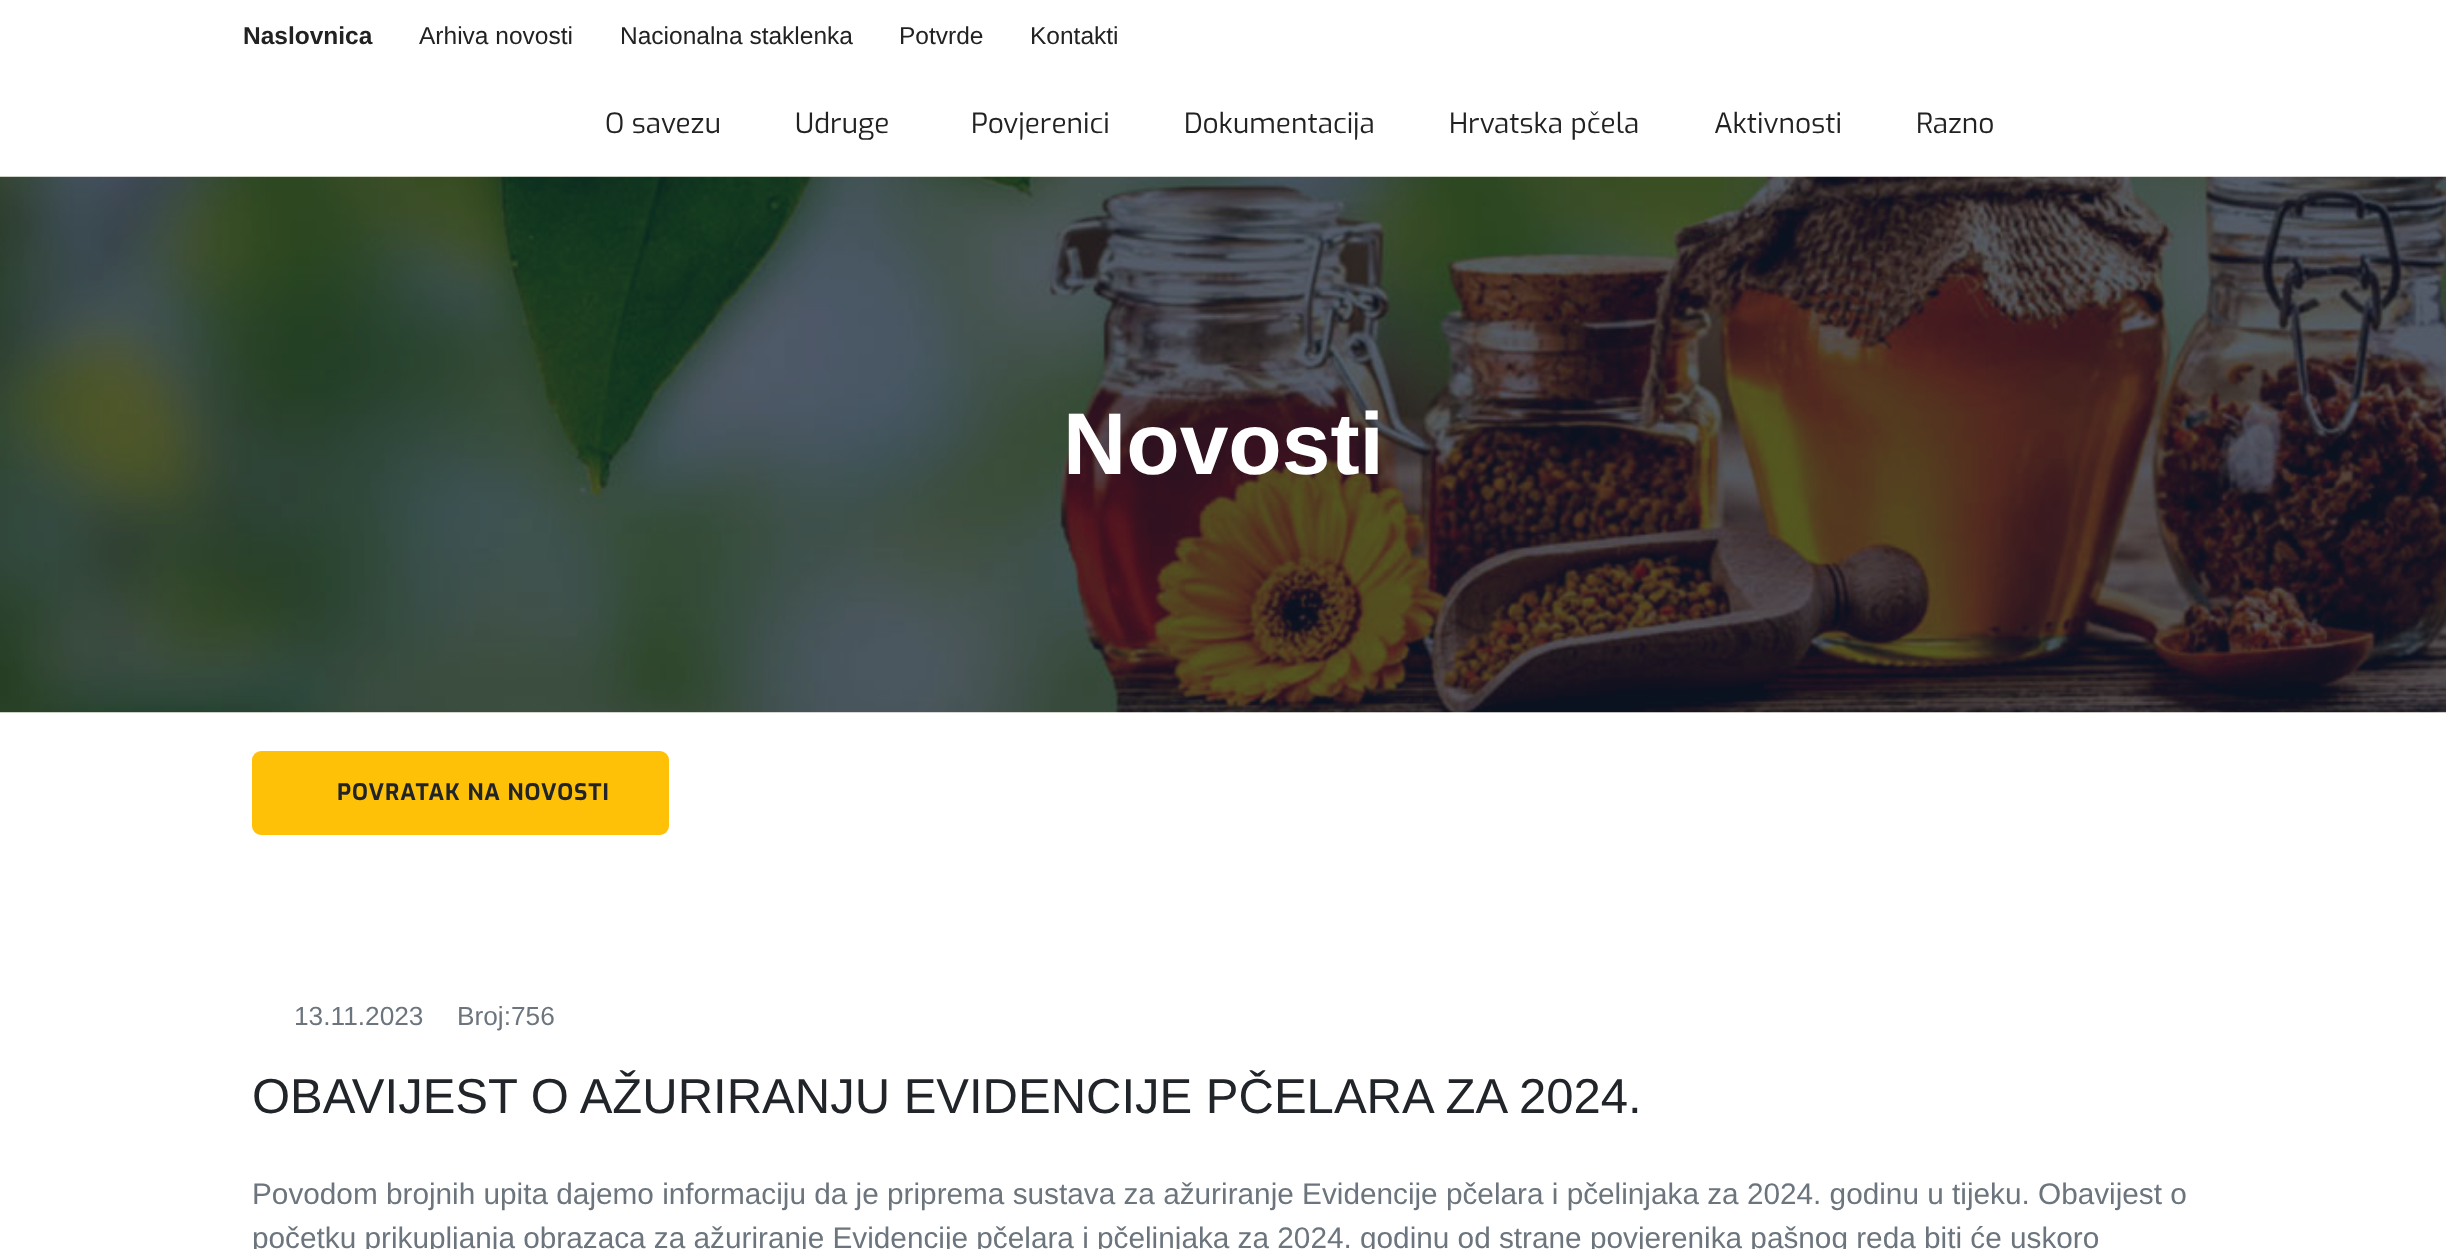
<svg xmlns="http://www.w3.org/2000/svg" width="2446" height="1249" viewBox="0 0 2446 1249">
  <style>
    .t1 { font: bold 24.5px Liberation Sans; fill: #222; }
    .t2 { font: 24.5px Liberation Sans; fill: #222; }
    .t3 { font: 28px Exo; fill: #222; }
    .t4 { font: bold 87.5px Liberation Sans; fill: #fff; }
    .t5 { font: bold 22.75px Exo; letter-spacing: 0.9px; fill: #212529; }
    .t6 { font: 26.25px Liberation Sans; fill: #6c757d; }
    .t7 { font: 49px Liberation Sans; fill: #212529; }
    .t8 { font: 29.75px Liberation Sans; fill: #6c757d; }
  </style>
  <rect width="100%" height="100%" fill="#fff"/>
  <text x="243" y="44" class="t1">Naslovnica</text>
  <text x="419" y="44" class="t2">Arhiva novosti</text>
  <text x="620" y="44" class="t2">Nacionalna staklenka</text>
  <text x="899" y="44" class="t2">Potvrde</text>
  <text x="1030" y="44" class="t2">Kontakti</text>
  <text x="605" y="133" class="t3">O savezu</text>
  <text x="795" y="133" class="t3">Udruge</text>
  <text x="971" y="133" class="t3">Povjerenici</text>
  <text x="1184" y="133" class="t3">Dokumentacija</text>
  <text x="1449" y="133" class="t3">Hrvatska pčela</text>
  <text x="1714" y="133" class="t3">Aktivnosti</text>
  <text x="1916" y="133" class="t3">Razno</text>
  <image x="0" y="176" width="2446" height="537" href="images/1.png"/>
  <text x="1063" y="474" class="t4">Novosti</text>
  <rect x="252" y="751" width="417" height="84" rx="9" fill="#ffc107"/>
  <text x="337" y="800" class="t5">POVRATAK NA NOVOSTI</text>
  <text x="294" y="1025" class="t6">13.11.2023</text>
  <text x="457" y="1025" class="t6">Broj:756</text>
  <text x="252" y="1113" class="t7">OBAVIJEST O AŽURIRANJU EVIDENCIJE PČELARA ZA 2024.</text>
  <text x="252" y="1204" class="t8">Povodom brojnih upita dajemo informaciju da je priprema sustava za ažuriranje Evidencije pčelara i pčelinjaka za 2024. godinu u tijeku. Obavijest o</text>
  <text x="252" y="1248" class="t8">početku prikupljanja obrazaca za ažuriranje Evidencije pčelara i pčelinjaka za 2024. godinu od strane povjerenika pašnog reda biti će uskoro</text>
</svg>
